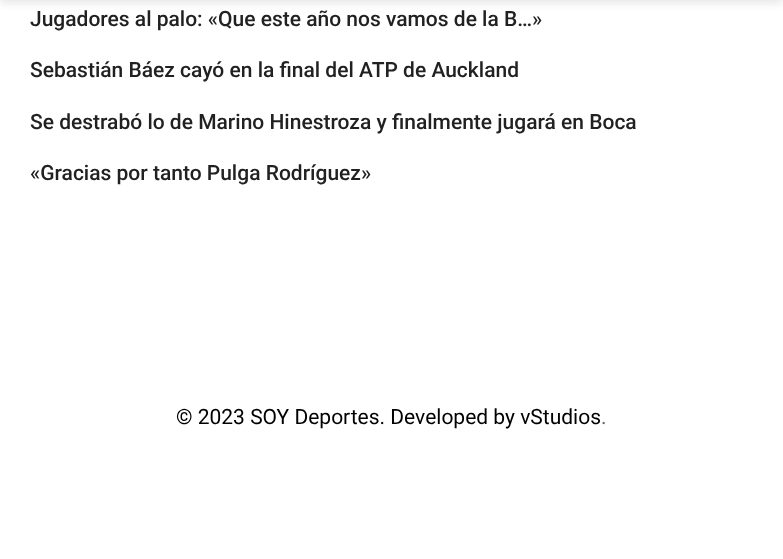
<svg xmlns="http://www.w3.org/2000/svg" width="783" height="559" viewBox="0 0 783 559">
  <style>
    .t1 { font: 500 21px Roboto; fill: #212121; }
    .t2 { font: 21px Roboto; fill: #000; }
    .t3 { font: 21px Roboto; fill: #666; }
  </style>
  <rect width="100%" height="100%" fill="#fff"/>
  <rect x="0" y="-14" width="783" height="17" fill="#0000001a" filter="blur(4.5px)"/>
  <text x="30" y="26" class="t1">Jugadores al palo: «Que este año nos vamos de la B…»</text>
  <text x="30" y="77" class="t1">Sebastián Báez cayó en la final del ATP de Auckland</text>
  <text x="30" y="129" class="t1">Se destrabó lo de Marino Hinestroza y finalmente jugará en Boca</text>
  <text x="30" y="180" class="t1">«Gracias por tanto Pulga Rodríguez»</text>
  <text x="176" y="424" class="t2">© 2023 SOY Deportes. Developed by vStudios</text>
  <text x="601" y="424" class="t3">.</text>
</svg>
